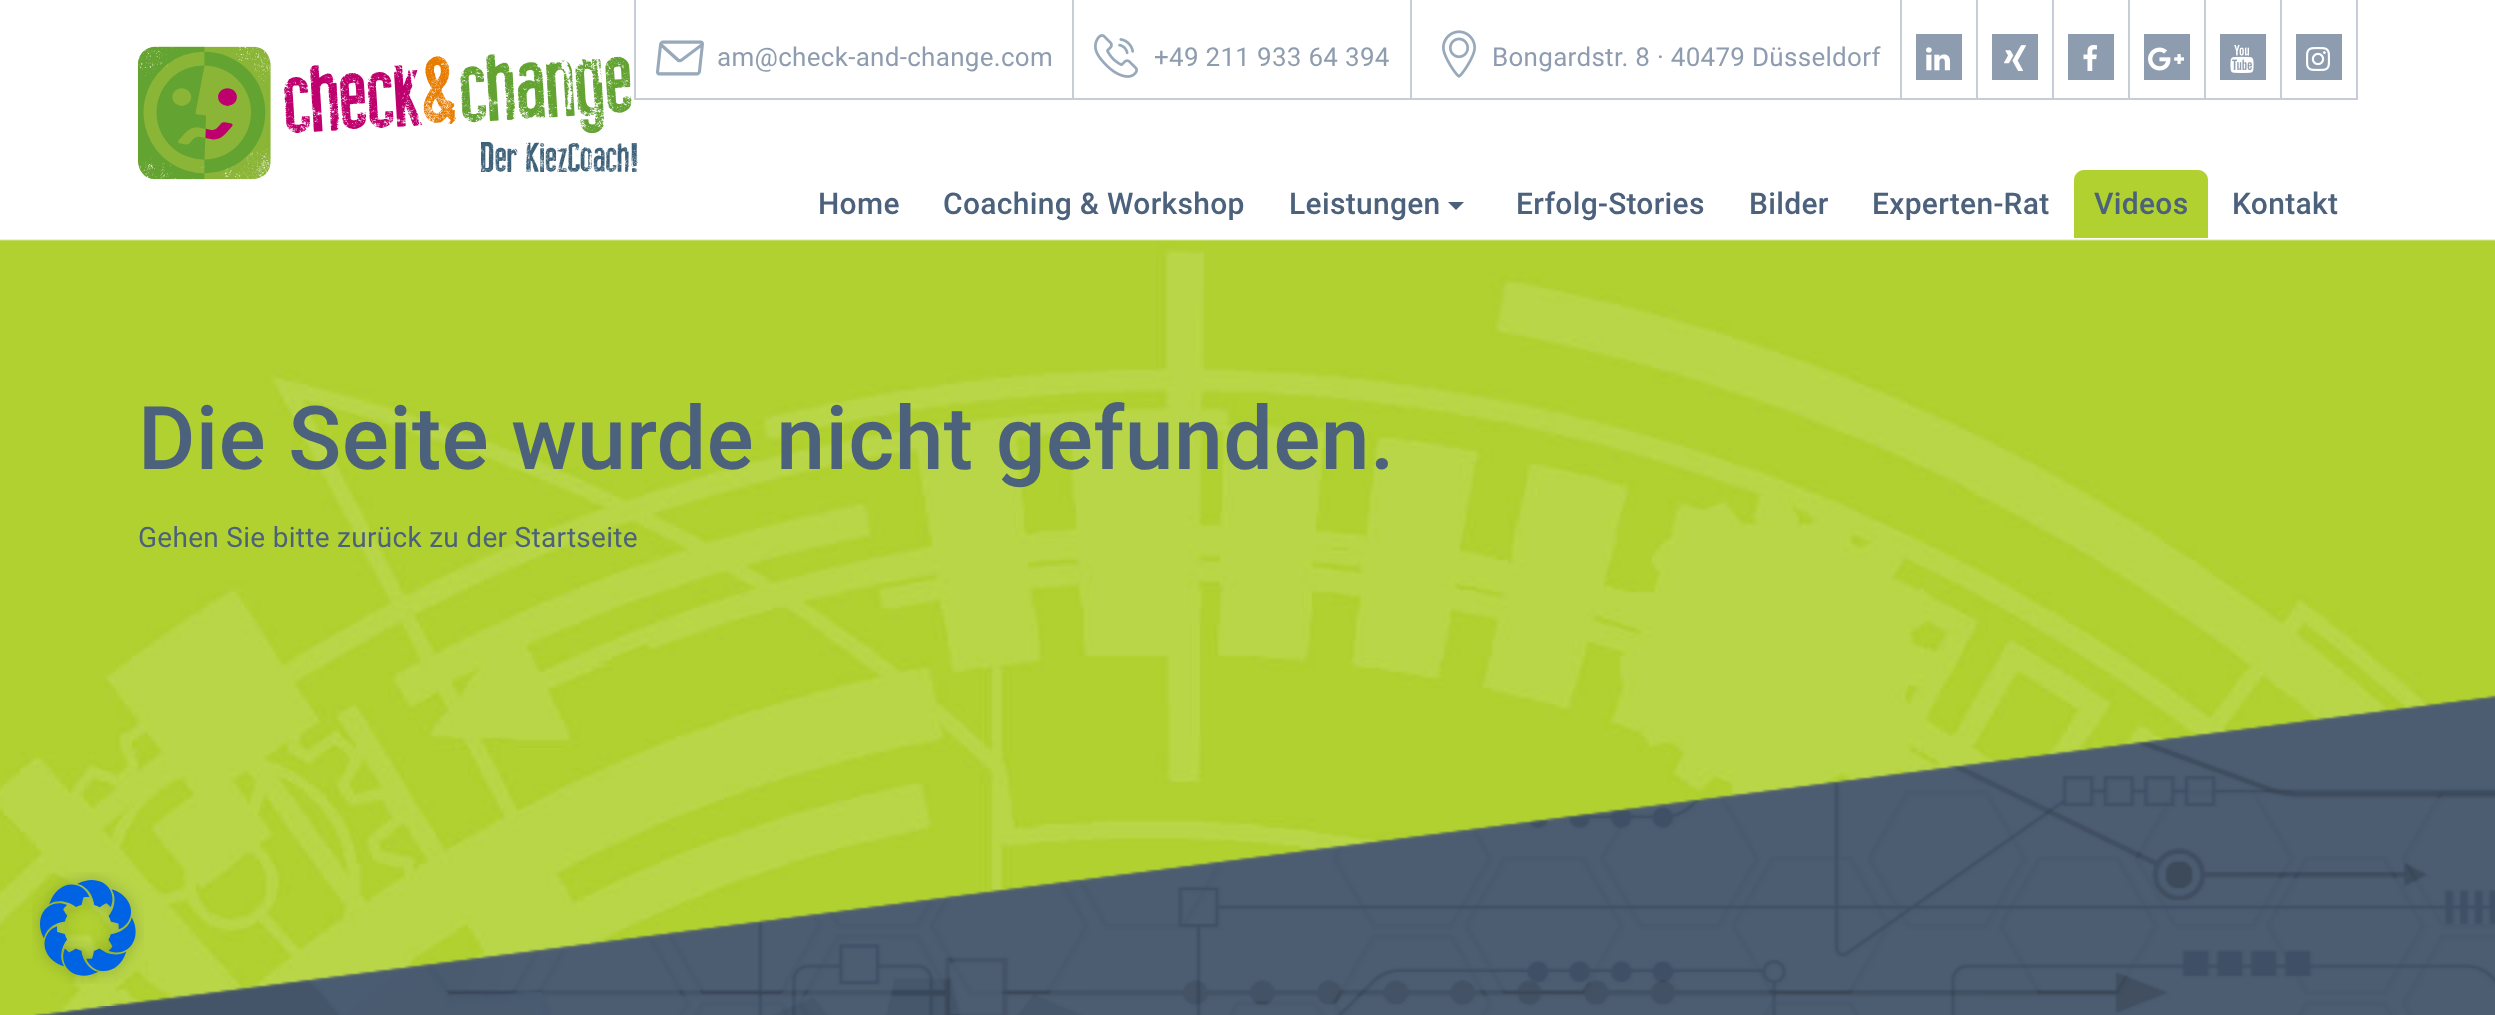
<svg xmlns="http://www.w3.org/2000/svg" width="2495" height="1015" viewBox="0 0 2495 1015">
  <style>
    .t1 { font: 26px Roboto; letter-spacing: 0.3px; fill: #8e9caf; }
    .t2 { font: 500 30px Roboto; letter-spacing: 0.3px; fill: #4c617c; }
    .t3 { font: 500 88px Roboto; letter-spacing: 0.3px; fill: #4c617c; }
    .t4 { font: 28px Roboto; letter-spacing: 0.3px; fill: #4c617c; }
  </style>
  <rect width="100%" height="100%" fill="#fff"/>
  <rect x="1072" y="0" width="2" height="100" fill="#c6cdd7"/>
  <rect x="634" y="98" width="440" height="2" fill="#c6cdd7"/>
  <rect x="634" y="0" width="2" height="100" fill="#c6cdd7"/>
  <image x="138" y="46" width="500" height="134" href="images/1.png"/>
  <image x="656" y="40" width="48" height="36" href="images/2.png"/>
  <text x="717" y="66" class="t1">am@check-and-change.com</text>
  <rect x="1410" y="0" width="2" height="100" fill="#c6cdd7"/>
  <rect x="1074" y="98" width="338" height="2" fill="#c6cdd7"/>
  <image x="1094" y="34" width="44" height="44" href="images/3.png"/>
  <text x="1154" y="66" class="t1">+49 211 933 64 394</text>
  <rect x="1900" y="0" width="2" height="100" fill="#c6cdd7"/>
  <rect x="1412" y="98" width="490" height="2" fill="#c6cdd7"/>
  <image x="1442" y="30" width="34" height="48" href="images/4.png"/>
  <text x="1492" y="66" class="t1">Bongardstr. 8 · 40479 Düsseldorf</text>
  <rect x="1976" y="0" width="2" height="100" fill="#c6cdd7"/>
  <rect x="1902" y="98" width="76" height="2" fill="#c6cdd7"/>
  <rect x="1916" y="34" width="46" height="46" fill="#8e9caf"/>
  <image x="1926" y="47" width="24" height="24" href="images/5.png"/>
  <rect x="2052" y="0" width="2" height="100" fill="#c6cdd7"/>
  <rect x="1978" y="98" width="76" height="2" fill="#c6cdd7"/>
  <rect x="1992" y="34" width="46" height="46" fill="#8e9caf"/>
  <image x="2004" y="45" width="22" height="26" href="images/6.png"/>
  <rect x="2128" y="0" width="2" height="100" fill="#c6cdd7"/>
  <rect x="2054" y="98" width="76" height="2" fill="#c6cdd7"/>
  <rect x="2068" y="34" width="46" height="46" fill="#8e9caf"/>
  <image x="2083" y="45" width="14" height="26" href="images/7.png"/>
  <rect x="2204" y="0" width="2" height="100" fill="#c6cdd7"/>
  <rect x="2130" y="98" width="76" height="2" fill="#c6cdd7"/>
  <rect x="2144" y="34" width="46" height="46" fill="#8e9caf"/>
  <image x="2148" y="47" width="36" height="24" href="images/8.png"/>
  <rect x="2280" y="0" width="2" height="100" fill="#c6cdd7"/>
  <rect x="2206" y="98" width="76" height="2" fill="#c6cdd7"/>
  <rect x="2220" y="34" width="46" height="46" fill="#8e9caf"/>
  <image x="2230" y="45" width="24" height="28" href="images/9.png"/>
  <rect x="2356" y="0" width="2" height="100" fill="#c6cdd7"/>
  <rect x="2282" y="98" width="76" height="2" fill="#c6cdd7"/>
  <rect x="2296" y="34" width="46" height="46" fill="#8e9caf"/>
  <image x="2306" y="47" width="24" height="24" href="images/10.png"/>
  <text x="818" y="214" class="t2">Home</text>
  <text x="943" y="214" class="t2">Coaching &amp; Workshop</text>
  <text x="1289" y="214" class="t2">Leistungen</text>
  <path d="M1448 202H1464L1456 210Z" fill="#4c617c"/>
  <text x="1516" y="214" class="t2">Erfolg-Stories</text>
  <text x="1749" y="214" class="t2">Bilder</text>
  <text x="1872" y="214" class="t2">Experten-Rat</text>
  <path d="M2084 170H2198C2203.5 170 2208 174.5 2208 180V240H2074V180C2074 174.5 2078.5 170 2084 170Z" fill="#b0d130"/>
  <rect x="2074" y="238" width="134" height="2" fill="#fff"/>
  <text x="2094" y="214" class="t2">Videos</text>
  <text x="2232" y="214" class="t2">Kontakt</text>
  <image x="0" y="239" width="2495" height="776" href="images/11.png"/>
  <text x="138" y="469" class="t3">Die Seite wurde nicht gefunden.</text>
  <text x="138" y="547" class="t4">Gehen Sie bitte zurück zu der Startseite</text>
  <image x="33" y="695" width="2462" height="320" href="images/12.png"/>
  <image x="32" y="872" width="112" height="112" href="images/13.png"/>
</svg>
